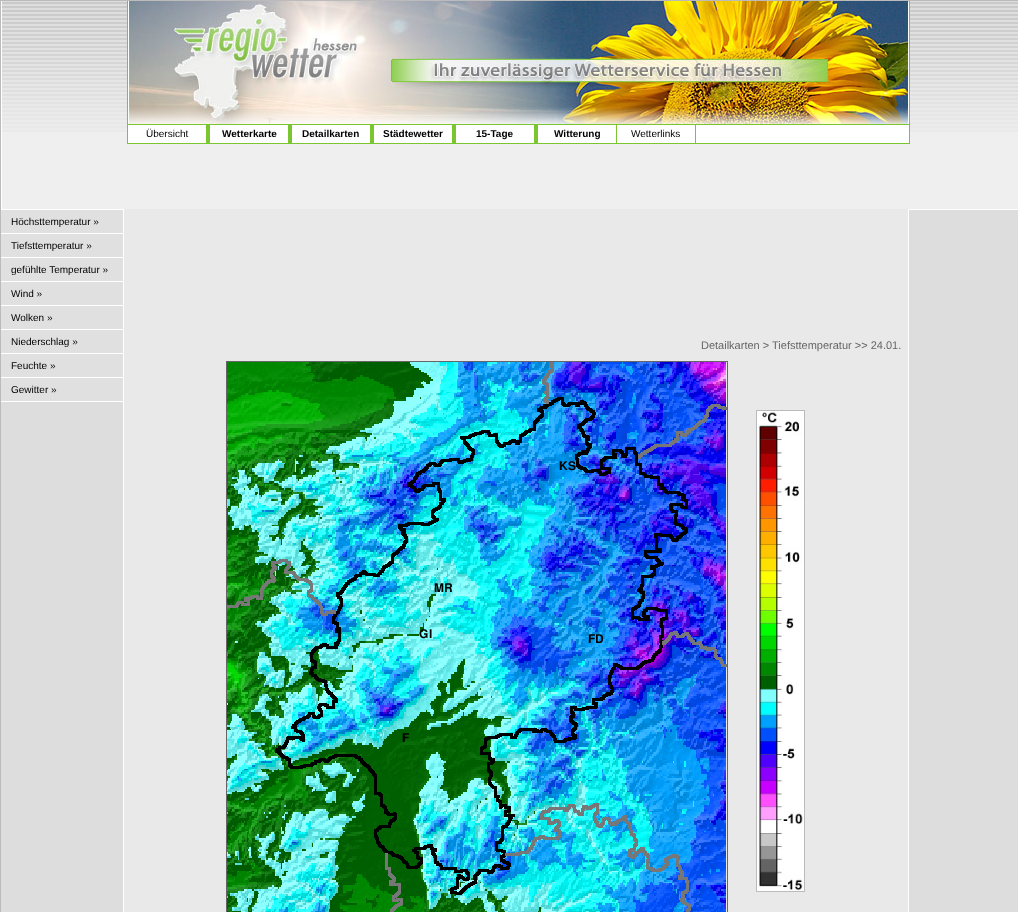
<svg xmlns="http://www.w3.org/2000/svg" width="1018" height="912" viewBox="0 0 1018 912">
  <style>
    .t1 { font: 10px Liberation Sans; fill: #000; }
    .t2 { font: bold 10px Liberation Sans; fill: #000; }
    .t3 { font: 11px Liberation Sans; fill: #666; }
  </style>
  <rect width="100%" height="100%" fill="#bbb"/>
  <rect x="1" y="1" width="1" height="208" fill="#fff"/>
  <rect x="2" y="132" width="125" height="27" fill="#efefef"/>
  <image x="2" y="1" width="125" height="131" href="images/1.png"/>
  <rect x="909" y="1" width="1" height="123" fill="#7ac630"/>
  <image x="127" y="1" width="782" height="123" href="images/2.png"/>
  <rect x="910" y="132" width="108" height="27" fill="#efefef"/>
  <image x="910" y="1" width="108" height="131" href="images/3.png"/>
  <rect x="127" y="144" width="783" height="15" fill="#efefef"/>
  <rect x="127.5" y="124.5" width="782" height="19" fill="#fff" stroke="#7ac630"/>
  <rect x="206" y="125" width="4" height="18" fill="#7ac630"/>
  <text x="146" y="137" class="t1">Übersicht</text>
  <rect x="288" y="125" width="4" height="18" fill="#7ac630"/>
  <text x="222" y="137" class="t2">Wetterkarte</text>
  <rect x="370" y="125" width="4" height="18" fill="#7ac630"/>
  <text x="302" y="137" class="t2">Detailkarten</text>
  <rect x="452" y="125" width="4" height="18" fill="#7ac630"/>
  <text x="383" y="137" class="t2">Städtewetter</text>
  <rect x="534" y="125" width="4" height="18" fill="#7ac630"/>
  <text x="476" y="137" class="t2">15-Tage</text>
  <rect x="616" y="125" width="1" height="18" fill="#7ac630"/>
  <text x="554" y="137" class="t2">Witterung</text>
  <rect x="695" y="125" width="1" height="18" fill="#7ac630"/>
  <text x="631" y="137" class="t1">Wetterlinks</text>
  <rect x="2" y="159" width="1016" height="50" fill="#efefef"/>
  <rect x="1" y="402" width="122" height="510" fill="#ddd"/>
  <rect x="1" y="209" width="123" height="1" fill="#fff"/>
  <rect x="123" y="209" width="1" height="703" fill="#fff"/>
  <rect x="1" y="210" width="122" height="23" fill="#e0e0e0"/>
  <rect x="1" y="233" width="123" height="1" fill="#fff"/>
  <text x="11" y="225" class="t1">Höchsttemperatur »</text>
  <rect x="1" y="234" width="122" height="23" fill="#e0e0e0"/>
  <rect x="1" y="257" width="123" height="1" fill="#fff"/>
  <text x="11" y="249" class="t1">Tiefsttemperatur »</text>
  <rect x="1" y="258" width="122" height="23" fill="#e0e0e0"/>
  <rect x="1" y="281" width="123" height="1" fill="#fff"/>
  <text x="11" y="273" class="t1">gefühlte Temperatur »</text>
  <rect x="1" y="282" width="122" height="23" fill="#e0e0e0"/>
  <rect x="1" y="305" width="123" height="1" fill="#fff"/>
  <text x="11" y="297" class="t1">Wind »</text>
  <rect x="1" y="306" width="122" height="23" fill="#e0e0e0"/>
  <rect x="1" y="329" width="123" height="1" fill="#fff"/>
  <text x="11" y="321" class="t1">Wolken »</text>
  <rect x="1" y="330" width="122" height="23" fill="#e0e0e0"/>
  <rect x="1" y="353" width="123" height="1" fill="#fff"/>
  <text x="11" y="345" class="t1">Niederschlag »</text>
  <rect x="1" y="354" width="122" height="23" fill="#e0e0e0"/>
  <rect x="1" y="377" width="123" height="1" fill="#fff"/>
  <text x="11" y="369" class="t1">Feuchte »</text>
  <rect x="1" y="378" width="122" height="23" fill="#e0e0e0"/>
  <rect x="1" y="401" width="123" height="1" fill="#fff"/>
  <text x="11" y="393" class="t1">Gewitter »</text>
  <rect x="124" y="209" width="784" height="703" fill="#e9e9e9"/>
  <text x="701" y="349" class="t3">Detailkarten &gt; Tiefsttemperatur &gt;&gt; 24.01.</text>
  <image x="227" y="362" width="499" height="550" href="images/4.png"/>
  <image x="227" y="362" width="500" height="550" href="images/5.png"/>
  <rect x="226.5" y="361.5" width="501" height="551" fill="none" stroke="#666"/>
  <rect x="756.5" y="410.5" width="48" height="481" fill="none" stroke="#bbb"/>
  <image x="757" y="411" width="47" height="480" href="images/6.png"/>
  <rect x="909" y="210" width="109" height="702" fill="#ddd"/>
  <rect x="908" y="209" width="110" height="1" fill="#fff"/>
  <rect x="908" y="209" width="1" height="703" fill="#fff"/>
</svg>
